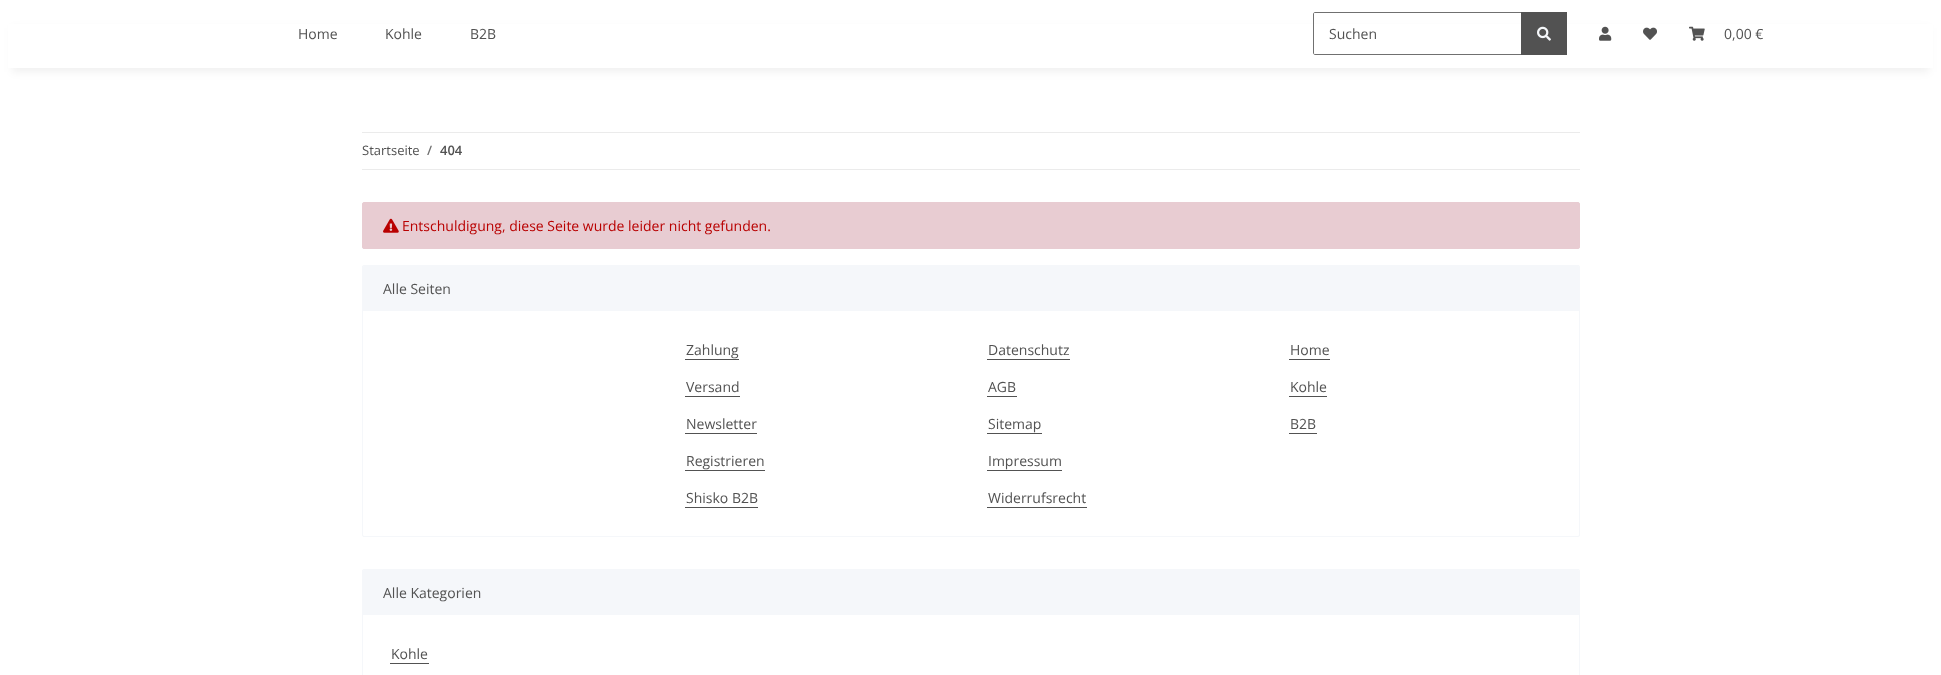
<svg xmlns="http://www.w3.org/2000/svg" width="1941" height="675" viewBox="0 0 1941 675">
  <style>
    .t1 { font: 14px Open Sans; fill: #525252; }
    .t2 { font: 13px Open Sans; fill: #525252; }
    .t3 { font: 600 13px Open Sans; fill: #707070; }
    .t4 { font: 600 13px Open Sans; fill: #525252; }
    .t5 { font: 14px Open Sans; fill: #b90000; }
  </style>
  <rect width="100%" height="100%" fill="#fff"/>
  <rect x="12" y="28" width="1917" height="44" fill="#0000000f" filter="blur(4.5px)"/>
  <rect x="8" y="24" width="1925" height="44" fill="#fff"/>
  <text x="298" y="39" class="t1">Home</text>
  <text x="385" y="39" class="t1">Kohle</text>
  <text x="470" y="39" class="t1">B2B</text>
  <path d="M1315 12.5H1521.5V54.5H1315C1314 54.5 1313.5 54 1313.5 53V14C1313.5 13 1314 12.5 1315 12.5Z" fill="none" stroke="#707070"/>
  <text x="1329" y="39" class="t1">Suchen</text>
  <rect x="1521" y="12" width="46" height="43" fill="#525252"/>
  <image x="1537" y="26" width="14" height="15" href="images/1.png"/>
  <image x="1599" y="26" width="13" height="15" href="images/2.png"/>
  <image x="1643" y="27" width="14" height="13" href="images/3.png"/>
  <image x="1689" y="26" width="16" height="15" href="images/4.png"/>
  <text x="1724" y="39" class="t1">0,00 €</text>
  <rect x="362" y="132" width="1218" height="1" fill="#ebebeb"/>
  <rect x="362" y="169" width="1218" height="1" fill="#ebebeb"/>
  <text x="362" y="155" class="t2">Startseite</text>
  <text x="427" y="155" class="t3">/</text>
  <text x="440" y="155" class="t4">404</text>
  <rect x="362.5" y="202.5" width="1217" height="46" rx="1.5" fill="#e8ccd2" stroke="#e8ccd2"/>
  <image x="383" y="218" width="16" height="15" href="images/5.png"/>
  <text x="402" y="231" class="t5">Entschuldigung, diese Seite wurde leider nicht gefunden.</text>
  <rect x="362.5" y="265.5" width="1217" height="271" rx="1.5" fill="none" stroke="#f5f7fa"/>
  <path d="M364 266H1578C1578.5 266 1579 266.5 1579 267V311H363V267C363 266.5 363.5 266 364 266Z" fill="#f5f7fa"/>
  <text x="383" y="294" class="t1">Alle Seiten</text>
  <text x="686" y="355" class="t1">Zahlung</text>
  <rect x="685" y="359" width="54" height="1" fill="#525252"/>
  <text x="686" y="392" class="t1">Versand</text>
  <rect x="685" y="396" width="55" height="1" fill="#525252"/>
  <text x="686" y="429" class="t1">Newsletter</text>
  <rect x="685" y="433" width="72" height="1" fill="#525252"/>
  <text x="686" y="466" class="t1">Registrieren</text>
  <rect x="685" y="470" width="80" height="1" fill="#525252"/>
  <text x="686" y="503" class="t1">Shisko B2B</text>
  <rect x="685" y="507" width="73" height="1" fill="#525252"/>
  <text x="988" y="355" class="t1">Datenschutz</text>
  <rect x="987" y="359" width="83" height="1" fill="#525252"/>
  <text x="988" y="392" class="t1">AGB</text>
  <rect x="987" y="396" width="30" height="1" fill="#525252"/>
  <text x="988" y="429" class="t1">Sitemap</text>
  <rect x="987" y="433" width="55" height="1" fill="#525252"/>
  <text x="988" y="466" class="t1">Impressum</text>
  <rect x="987" y="470" width="75" height="1" fill="#525252"/>
  <text x="988" y="503" class="t1">Widerrufsrecht</text>
  <rect x="987" y="507" width="100" height="1" fill="#525252"/>
  <text x="1290" y="355" class="t1">Home</text>
  <rect x="1289" y="359" width="41" height="1" fill="#525252"/>
  <text x="1290" y="392" class="t1">Kohle</text>
  <rect x="1289" y="396" width="38" height="1" fill="#525252"/>
  <text x="1290" y="429" class="t1">B2B</text>
  <rect x="1289" y="433" width="28" height="1" fill="#525252"/>
  <rect x="362.5" y="569.5" width="1217" height="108" rx="1.5" fill="none" stroke="#f5f7fa"/>
  <path d="M364 570H1578C1578.5 570 1579 570.5 1579 571V615H363V571C363 570.5 363.5 570 364 570Z" fill="#f5f7fa"/>
  <text x="383" y="598" class="t1">Alle Kategorien</text>
  <text x="391" y="659" class="t1">Kohle</text>
  <rect x="390" y="663" width="39" height="1" fill="#525252"/>
</svg>
